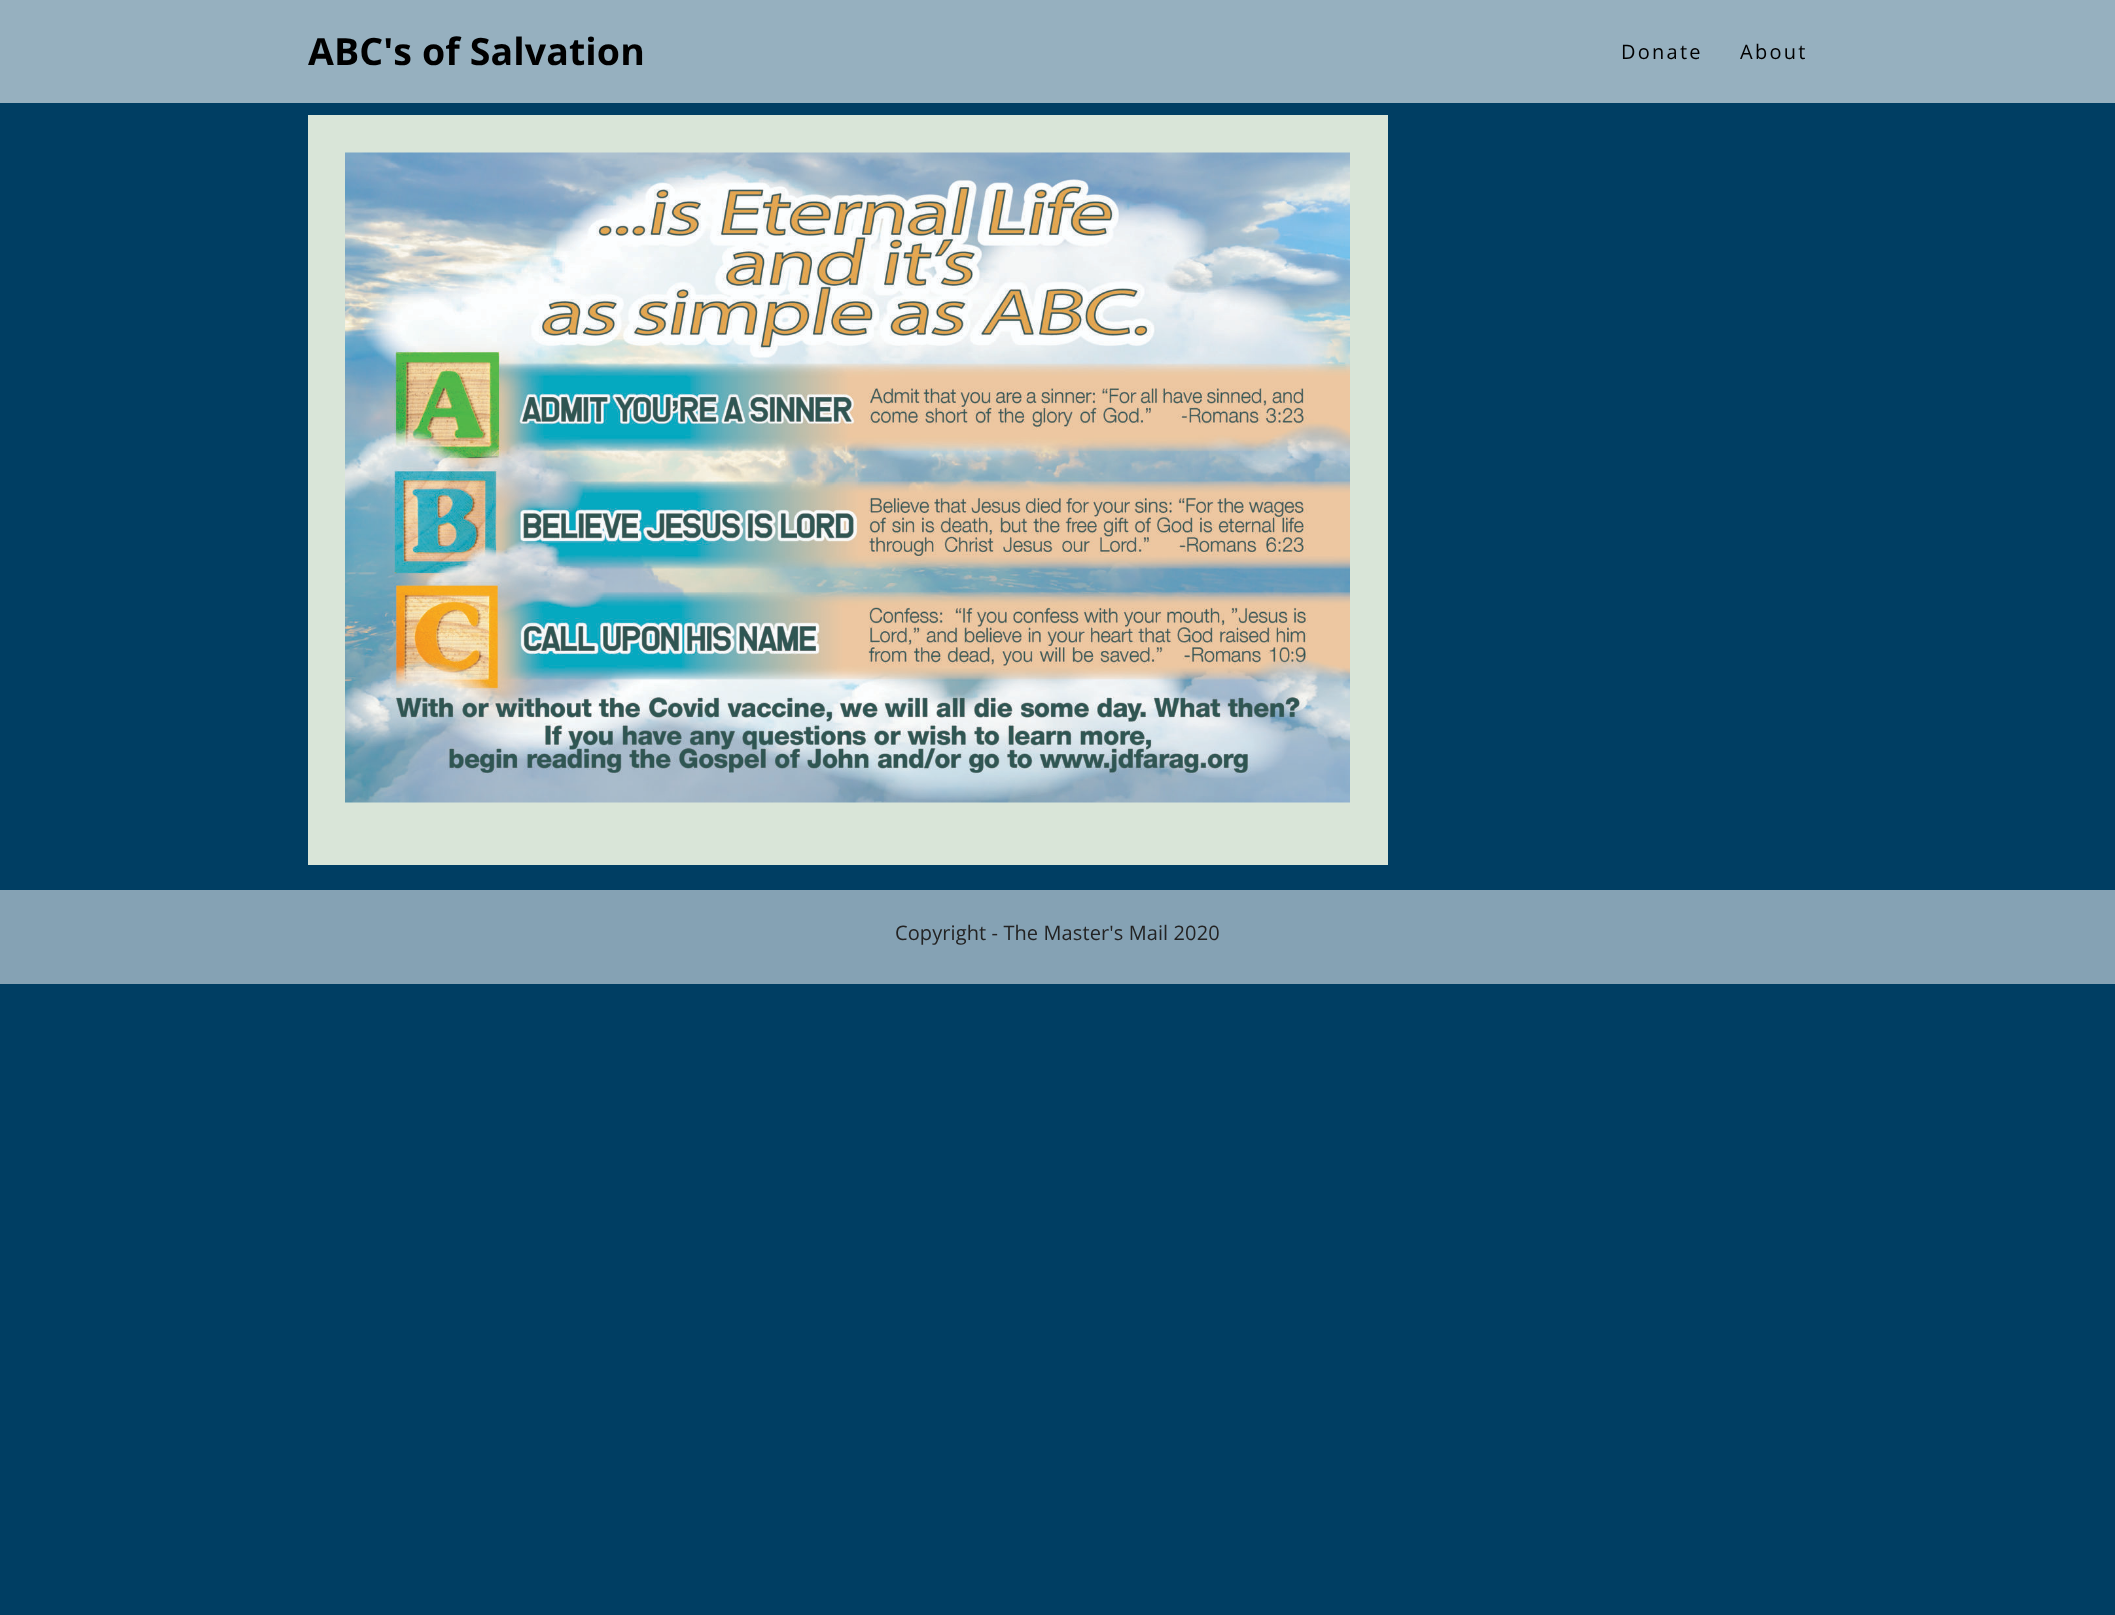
<svg xmlns="http://www.w3.org/2000/svg" width="2115" height="1615" viewBox="0 0 2115 1615">
  <style>
    .t1 { font: bold 37.5px Open Sans; letter-spacing: 0.1px; fill: #000; }
    .t2 { font: 20px Open Sans; letter-spacing: 2.25px; fill: #000; }
    .t3 { font: 20px Open Sans; letter-spacing: 0.1px; fill: #232323; }
  </style>
  <rect width="100%" height="100%" fill="#003e63"/>
  <rect x="0" y="0" width="2115" height="103" fill="#96b0bf"/>
  <text x="308" y="65" class="t1">ABC's of Salvation</text>
  <text x="1621" y="59" class="t2">Donate</text>
  <text x="1740" y="59" class="t2">About</text>
  <rect x="308" y="115" width="1080" height="750" fill="#d9e5d8"/>
  <image x="345" y="152" width="1005" height="651" href="images/1.png"/>
  <rect x="0" y="890" width="2115" height="94" fill="#85a2b4"/>
  <text x="895" y="940" class="t3">Copyright - The Master's Mail 2020</text>
</svg>
